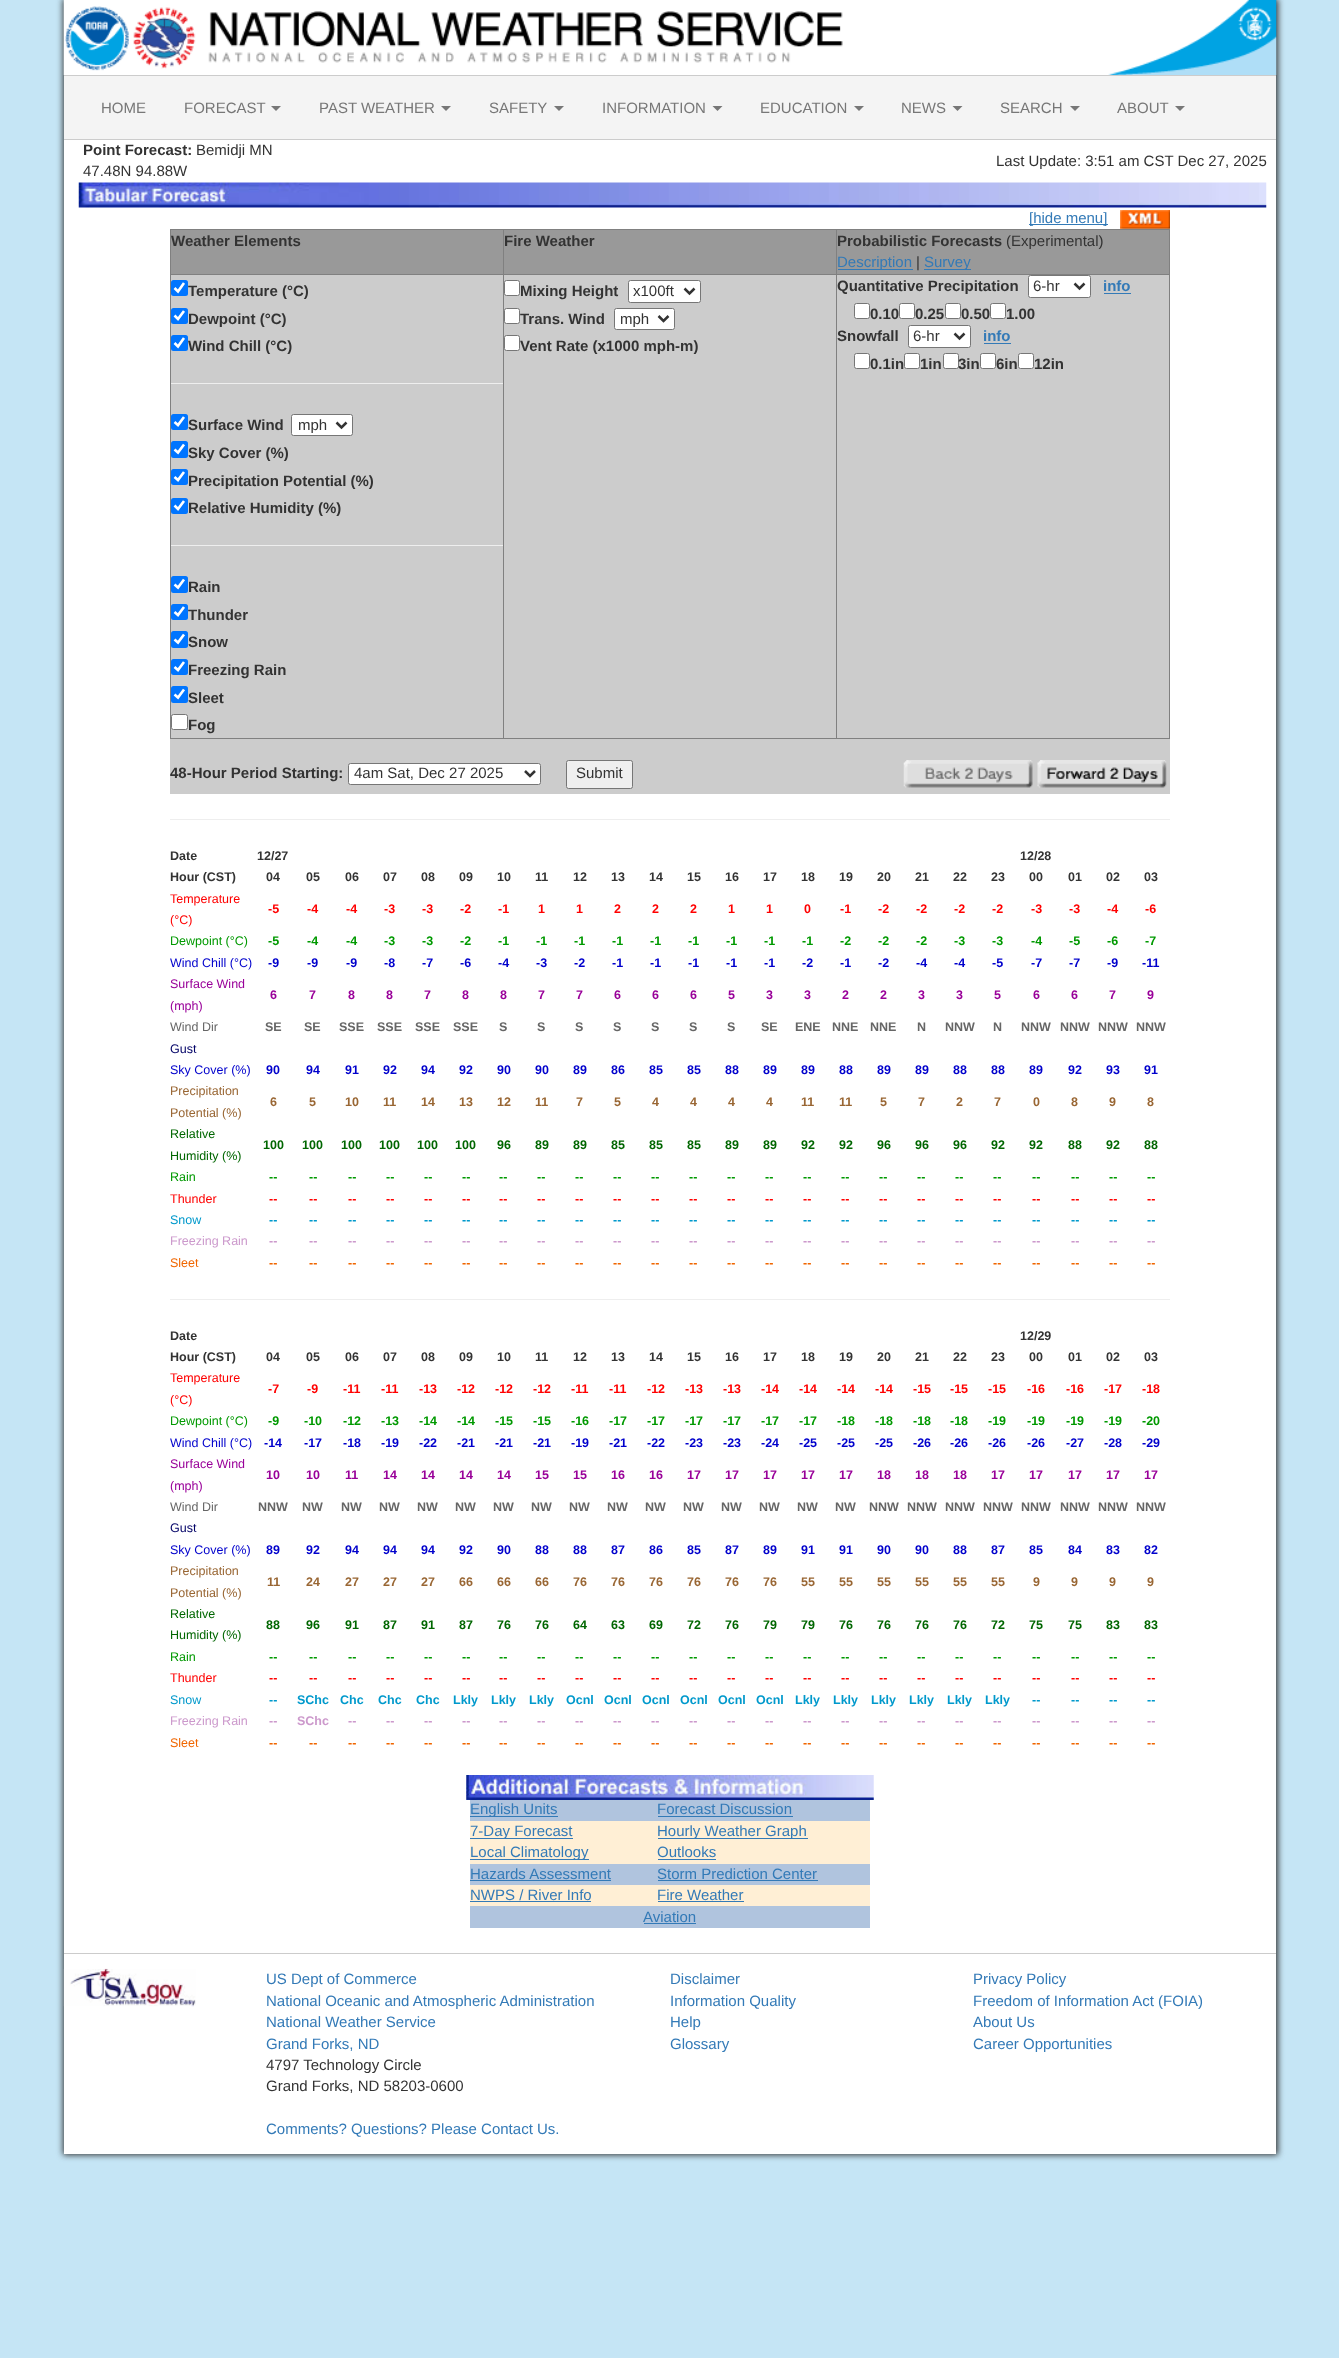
<svg xmlns="http://www.w3.org/2000/svg" width="1339" height="2358" viewBox="0 0 1339 2358">
  <style>
    .t1 { font: 15px Liberation Sans; fill: #777; }
    .t2 { font: bold 15px Liberation Sans; fill: #333; }
    .t3 { font: 15px Liberation Sans; fill: #333; }
    .t4 { font: 15px Liberation Sans; fill: #337ab7; }
    .t5 { font: bold 15px Liberation Sans; fill: #337ab7; }
    .t6 { font: bold 12.5px Liberation Sans; fill: #333; }
    .t7 { font: 12.5px Liberation Sans; fill: #f00; }
    .t8 { font: bold 12.5px Liberation Sans; fill: #f00; }
    .t9 { font: 12.5px Liberation Sans; fill: #090; }
    .t10 { font: bold 12.5px Liberation Sans; fill: #090; }
    .t11 { font: 12.5px Liberation Sans; fill: #00c; }
    .t12 { font: bold 12.5px Liberation Sans; fill: #00c; }
    .t13 { font: 12.5px Liberation Sans; fill: #909; }
    .t14 { font: bold 12.5px Liberation Sans; fill: #909; }
    .t15 { font: 12.5px Liberation Sans; fill: #666; }
    .t16 { font: bold 12.5px Liberation Sans; fill: #666; }
    .t17 { font: 12.5px Liberation Sans; fill: #006; }
    .t18 { font: 12.5px Liberation Sans; fill: #963; }
    .t19 { font: bold 12.5px Liberation Sans; fill: #963; }
    .t20 { font: 12.5px Liberation Sans; fill: #060; }
    .t21 { font: bold 12.5px Liberation Sans; fill: #060; }
    .t22 { font: 12.5px Liberation Sans; fill: #09c; }
    .t23 { font: bold 12.5px Liberation Sans; fill: #09c; }
    .t24 { font: 12.5px Liberation Sans; fill: #c9c; }
    .t25 { font: bold 12.5px Liberation Sans; fill: #c9c; }
    .t26 { font: 12.5px Liberation Sans; fill: #f06600; }
    .t27 { font: bold 12.5px Liberation Sans; fill: #f06600; }
  </style>
  <rect width="100%" height="100%" fill="#c5e5f5"/>
  <rect x="63" y="-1" width="1215" height="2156" fill="#333" filter="blur(3px)"/>
  <rect x="64" y="0" width="1212" height="2154" fill="#fff"/>
  <image x="63" y="0" width="66" height="75" href="images/1.png"/>
  <image x="133" y="7" width="710" height="62" href="images/2.png"/>
  <image x="1108" y="0" width="169" height="75" href="images/3.png"/>
  <rect x="64" y="76" width="1212" height="63" fill="#f4f4f4"/>
  <rect x="64" y="75" width="1212" height="1" fill="#ccc"/>
  <rect x="64" y="139" width="1212" height="1" fill="#ccc"/>
  <text x="101" y="113" class="t1">HOME</text>
  <text x="184" y="113" class="t1">FORECAST</text>
  <path d="M271 106H281L276 111Z" fill="#777"/>
  <text x="319" y="113" class="t1">PAST WEATHER</text>
  <path d="M441 106H451L446 111Z" fill="#777"/>
  <text x="489" y="113" class="t1">SAFETY</text>
  <path d="M554 106H564L559 111Z" fill="#777"/>
  <text x="602" y="113" class="t1">INFORMATION</text>
  <path d="M712.5 106H722.5L717.5 111Z" fill="#777"/>
  <text x="760" y="113" class="t1">EDUCATION</text>
  <path d="M854 106H864L859 111Z" fill="#777"/>
  <text x="901" y="113" class="t1">NEWS</text>
  <path d="M952.5 106H962.5L957.5 111Z" fill="#777"/>
  <text x="1000" y="113" class="t1">SEARCH</text>
  <path d="M1070 106H1080L1075 111Z" fill="#777"/>
  <text x="1117" y="113" class="t1">ABOUT</text>
  <path d="M1175 106H1185L1180 111Z" fill="#777"/>
  <text x="83" y="155" class="t2">Point Forecast:</text>
  <text x="196" y="155" class="t3">Bemidji MN</text>
  <text x="83" y="176" class="t3">47.48N 94.88W</text>
  <text x="996" y="166" class="t3">Last Update: 3:51 am CST Dec 27, 2025</text>
  <image x="78" y="182" width="1189" height="26" href="images/4.png"/>
  <rect x="1029" y="224" width="79" height="1" fill="#337ab7"/>
  <text x="1029" y="223" class="t4">[hide menu]</text>
  <image x="1120" y="210" width="50" height="19" href="images/5.png"/>
  <rect x="171" y="275" width="998" height="463" fill="#ccc"/>
  <rect x="170" y="229" width="1000" height="1" fill="#808080"/>
  <rect x="1169" y="229" width="1" height="510" fill="#808080"/>
  <rect x="170" y="738" width="1000" height="1" fill="#808080"/>
  <rect x="170" y="229" width="1" height="510" fill="#808080"/>
  <rect x="171" y="230" width="332" height="44" fill="#999"/>
  <text x="171" y="246" class="t2">Weather Elements</text>
  <rect x="504" y="230" width="332" height="44" fill="#999"/>
  <rect x="836" y="274" width="334" height="1" fill="#808080"/>
  <rect x="836" y="274" width="1" height="465" fill="#808080"/>
  <rect x="503" y="274" width="335" height="1" fill="#808080"/>
  <rect x="503" y="274" width="1" height="465" fill="#808080"/>
  <rect x="170" y="274" width="334" height="1" fill="#808080"/>
  <rect x="503" y="229" width="1" height="46" fill="#808080"/>
  <text x="504" y="246" class="t2">Fire Weather</text>
  <rect x="837" y="230" width="332" height="44" fill="#999"/>
  <rect x="836" y="229" width="1" height="46" fill="#808080"/>
  <text x="837" y="246" class="t2">Probabilistic Forecasts</text>
  <text x="1006" y="246" class="t3">(Experimental)</text>
  <rect x="838" y="269" width="75" height="1" fill="#337ab7"/>
  <text x="837" y="267" class="t4">Description</text>
  <text x="916" y="267" class="t3">|</text>
  <rect x="924" y="269" width="47" height="1" fill="#337ab7"/>
  <text x="924" y="267" class="t4">Survey</text>
  <rect x="171" y="280" width="17" height="16" rx="2.5" fill="#0075ff"/>
  <path d="M174.5 288L178 291.5L184 283" fill="none" stroke="#fff" stroke-width="2.6"/>
  <text x="188" y="296" class="t2">Temperature (°C)</text>
  <rect x="171" y="308" width="17" height="16" rx="2.5" fill="#0075ff"/>
  <path d="M174.5 315.5L178 319L184 311" fill="none" stroke="#fff" stroke-width="2.6"/>
  <text x="188" y="324" class="t2">Dewpoint (°C)</text>
  <rect x="171" y="335" width="17" height="16" rx="2.5" fill="#0075ff"/>
  <path d="M174.5 343L178 346.5L184 338" fill="none" stroke="#fff" stroke-width="2.6"/>
  <text x="188" y="351" class="t2">Wind Chill (°C)</text>
  <rect x="171" y="383" width="332" height="1" fill="#eee"/>
  <rect x="171" y="414" width="17" height="16" rx="2.5" fill="#0075ff"/>
  <path d="M174.5 422L178 425L184 417" fill="none" stroke="#fff" stroke-width="2.6"/>
  <text x="188" y="430" class="t2">Surface Wind</text>
  <rect x="291.5" y="414.5" width="61" height="21" rx="2" fill="#fff" stroke="#767676"/>
  <path d="M336.5 422.5L341.5 427.5L346.5 422.5" fill="none" stroke="#333" stroke-width="2.5"/>
  <text x="298" y="430" class="t3">mph</text>
  <rect x="171" y="441" width="17" height="17" rx="2.5" fill="#0075ff"/>
  <path d="M174.5 449.5L178 452.5L184 444.5" fill="none" stroke="#fff" stroke-width="2.6"/>
  <text x="188" y="458" class="t2">Sky Cover (%)</text>
  <rect x="171" y="469" width="17" height="16" rx="2.5" fill="#0075ff"/>
  <path d="M174.5 477L178 480L184 472" fill="none" stroke="#fff" stroke-width="2.6"/>
  <text x="188" y="486" class="t2">Precipitation Potential (%)</text>
  <rect x="171" y="498" width="17" height="16" rx="2.5" fill="#0075ff"/>
  <path d="M174.5 505.5L178 509L184 501" fill="none" stroke="#fff" stroke-width="2.6"/>
  <text x="188" y="513" class="t2">Relative Humidity (%)</text>
  <rect x="171" y="545" width="332" height="1" fill="#eee"/>
  <rect x="171" y="576" width="17" height="17" rx="2.5" fill="#0075ff"/>
  <path d="M174.5 584.5L178 587.5L184 579.5" fill="none" stroke="#fff" stroke-width="2.6"/>
  <text x="188" y="592" class="t2">Rain</text>
  <rect x="171" y="604" width="17" height="16" rx="2.5" fill="#0075ff"/>
  <path d="M174.5 612L178 615L184 607" fill="none" stroke="#fff" stroke-width="2.6"/>
  <text x="188" y="620" class="t2">Thunder</text>
  <rect x="171" y="631" width="17" height="17" rx="2.5" fill="#0075ff"/>
  <path d="M174.5 639.5L178 642.5L184 634.5" fill="none" stroke="#fff" stroke-width="2.6"/>
  <text x="188" y="647" class="t2">Snow</text>
  <rect x="171" y="659" width="17" height="16" rx="2.5" fill="#0075ff"/>
  <path d="M174.5 667L178 670L184 662" fill="none" stroke="#fff" stroke-width="2.6"/>
  <text x="188" y="675" class="t2">Freezing Rain</text>
  <rect x="171" y="686" width="17" height="17" rx="2.5" fill="#0075ff"/>
  <path d="M174.5 694.5L178 697.5L184 689.5" fill="none" stroke="#fff" stroke-width="2.6"/>
  <text x="188" y="703" class="t2">Sleet</text>
  <rect x="171.5" y="714.5" width="16" height="15" rx="2" fill="#fff" stroke="#767676"/>
  <text x="188" y="730" class="t2">Fog</text>
  <rect x="504.5" y="280.5" width="15" height="15" rx="2" fill="#fff" stroke="#767676"/>
  <text x="520" y="296" class="t2">Mixing Height</text>
  <rect x="628.5" y="280.5" width="72" height="22" rx="2" fill="#fff" stroke="#767676"/>
  <path d="M684.5 288.5L689.5 293.5L694.5 288.5" fill="none" stroke="#333" stroke-width="2.5"/>
  <text x="633" y="296" class="t3">x100ft</text>
  <rect x="504.5" y="308.5" width="15" height="15" rx="2" fill="#fff" stroke="#767676"/>
  <text x="520" y="324" class="t2">Trans. Wind</text>
  <rect x="614.5" y="308.5" width="60" height="21" rx="2" fill="#fff" stroke="#767676"/>
  <path d="M658.5 316L663.5 321L668.5 316" fill="none" stroke="#333" stroke-width="2.5"/>
  <text x="620" y="324" class="t3">mph</text>
  <rect x="504.5" y="335.5" width="15" height="15" rx="2" fill="#fff" stroke="#767676"/>
  <text x="520" y="351" class="t2">Vent Rate (x1000 mph-m)</text>
  <text x="837" y="291" class="t2">Quantitative Precipitation</text>
  <rect x="1028.5" y="275.5" width="62" height="22" rx="2" fill="#fff" stroke="#767676"/>
  <path d="M1074.5 283.5L1079.5 288.5L1084.5 283.5" fill="none" stroke="#333" stroke-width="2.5"/>
  <text x="1033" y="291" class="t3">6-hr</text>
  <text x="1103" y="291" class="t5">info</text>
  <rect x="1104" y="293" width="27" height="1" fill="#337ab7"/>
  <rect x="854.5" y="303.5" width="15" height="15" rx="2" fill="#fff" stroke="#767676"/>
  <text x="870" y="319" class="t2">0.10</text>
  <rect x="899.5" y="303.5" width="15" height="15" rx="2" fill="#fff" stroke="#767676"/>
  <text x="915" y="319" class="t2">0.25</text>
  <rect x="945.5" y="303.5" width="15" height="15" rx="2" fill="#fff" stroke="#767676"/>
  <text x="961" y="319" class="t2">0.50</text>
  <rect x="990.5" y="303.5" width="15" height="15" rx="2" fill="#fff" stroke="#767676"/>
  <text x="1006" y="319" class="t2">1.00</text>
  <text x="837" y="341" class="t2">Snowfall</text>
  <rect x="908.5" y="325.5" width="62" height="22" rx="2" fill="#fff" stroke="#767676"/>
  <path d="M954.5 333.5L959.5 338.5L964.5 333.5" fill="none" stroke="#333" stroke-width="2.5"/>
  <text x="913" y="341" class="t3">6-hr</text>
  <text x="983" y="341" class="t5">info</text>
  <rect x="984" y="343" width="27" height="1" fill="#337ab7"/>
  <rect x="854.5" y="353.5" width="15" height="15" rx="2" fill="#fff" stroke="#767676"/>
  <text x="870" y="369" class="t2">0.1in</text>
  <rect x="904.5" y="353.5" width="15" height="15" rx="2" fill="#fff" stroke="#767676"/>
  <text x="920" y="369" class="t2">1in</text>
  <rect x="943.5" y="353.5" width="15" height="15" rx="2" fill="#fff" stroke="#767676"/>
  <text x="958" y="369" class="t2">3in</text>
  <rect x="980.5" y="353.5" width="15" height="15" rx="2" fill="#fff" stroke="#767676"/>
  <text x="996" y="369" class="t2">6in</text>
  <rect x="1018.5" y="353.5" width="15" height="15" rx="2" fill="#fff" stroke="#767676"/>
  <text x="1034" y="369" class="t2">12in</text>
  <rect x="170" y="739" width="1000" height="55" fill="#ccc"/>
  <text x="170" y="778" class="t2">48-Hour Period Starting:</text>
  <rect x="348.5" y="763.5" width="192" height="21" rx="2" fill="#fff" stroke="#767676"/>
  <path d="M525 771L530 776L535 771" fill="none" stroke="#333" stroke-width="2.5"/>
  <text x="354" y="778" class="t3">4am Sat, Dec 27 2025</text>
  <rect x="566.5" y="760.5" width="66" height="28" rx="2" fill="#efefef" stroke="#767676"/>
  <text x="576" y="778" class="t3">Submit</text>
  <image x="903" y="760" width="130" height="28" href="images/6.png"/>
  <image x="1037" y="760" width="130" height="28" href="images/7.png"/>
  <rect x="170" y="819" width="1000" height="1" fill="#eee"/>
  <text x="170" y="860" class="t6">Date</text>
  <text x="257" y="860" class="t6">12/27</text>
  <text x="1020" y="860" class="t6">12/28</text>
  <text x="170" y="881" class="t6">Hour (CST)</text>
  <text x="266" y="881" class="t6">04</text>
  <text x="306" y="881" class="t6">05</text>
  <text x="345" y="881" class="t6">06</text>
  <text x="383" y="881" class="t6">07</text>
  <text x="421" y="881" class="t6">08</text>
  <text x="459" y="881" class="t6">09</text>
  <text x="497" y="881" class="t6">10</text>
  <text x="535" y="881" class="t6">11</text>
  <text x="573" y="881" class="t6">12</text>
  <text x="611" y="881" class="t6">13</text>
  <text x="649" y="881" class="t6">14</text>
  <text x="687" y="881" class="t6">15</text>
  <text x="725" y="881" class="t6">16</text>
  <text x="763" y="881" class="t6">17</text>
  <text x="801" y="881" class="t6">18</text>
  <text x="839" y="881" class="t6">19</text>
  <text x="877" y="881" class="t6">20</text>
  <text x="915" y="881" class="t6">21</text>
  <text x="953" y="881" class="t6">22</text>
  <text x="991" y="881" class="t6">23</text>
  <text x="1029" y="881" class="t6">00</text>
  <text x="1068" y="881" class="t6">01</text>
  <text x="1106" y="881" class="t6">02</text>
  <text x="1144" y="881" class="t6">03</text>
  <text x="170" y="903" class="t7">Temperature</text>
  <text x="170" y="924" class="t7">(°C)</text>
  <text x="268" y="913" class="t8">-5</text>
  <text x="307" y="913" class="t8">-4</text>
  <text x="346" y="913" class="t8">-4</text>
  <text x="384" y="913" class="t8">-3</text>
  <text x="422" y="913" class="t8">-3</text>
  <text x="460" y="913" class="t8">-2</text>
  <text x="498" y="913" class="t8">-1</text>
  <text x="538" y="913" class="t8">1</text>
  <text x="576" y="913" class="t8">1</text>
  <text x="614" y="913" class="t8">2</text>
  <text x="652" y="913" class="t8">2</text>
  <text x="690" y="913" class="t8">2</text>
  <text x="728" y="913" class="t8">1</text>
  <text x="766" y="913" class="t8">1</text>
  <text x="804" y="913" class="t8">0</text>
  <text x="840" y="913" class="t8">-1</text>
  <text x="878" y="913" class="t8">-2</text>
  <text x="916" y="913" class="t8">-2</text>
  <text x="954" y="913" class="t8">-2</text>
  <text x="992" y="913" class="t8">-2</text>
  <text x="1031" y="913" class="t8">-3</text>
  <text x="1069" y="913" class="t8">-3</text>
  <text x="1107" y="913" class="t8">-4</text>
  <text x="1145" y="913" class="t8">-6</text>
  <text x="170" y="945" class="t9">Dewpoint (°C)</text>
  <text x="268" y="945" class="t10">-5</text>
  <text x="307" y="945" class="t10">-4</text>
  <text x="346" y="945" class="t10">-4</text>
  <text x="384" y="945" class="t10">-3</text>
  <text x="422" y="945" class="t10">-3</text>
  <text x="460" y="945" class="t10">-2</text>
  <text x="498" y="945" class="t10">-1</text>
  <text x="536" y="945" class="t10">-1</text>
  <text x="574" y="945" class="t10">-1</text>
  <text x="612" y="945" class="t10">-1</text>
  <text x="650" y="945" class="t10">-1</text>
  <text x="688" y="945" class="t10">-1</text>
  <text x="726" y="945" class="t10">-1</text>
  <text x="764" y="945" class="t10">-1</text>
  <text x="802" y="945" class="t10">-1</text>
  <text x="840" y="945" class="t10">-2</text>
  <text x="878" y="945" class="t10">-2</text>
  <text x="916" y="945" class="t10">-2</text>
  <text x="954" y="945" class="t10">-3</text>
  <text x="992" y="945" class="t10">-3</text>
  <text x="1031" y="945" class="t10">-4</text>
  <text x="1069" y="945" class="t10">-5</text>
  <text x="1107" y="945" class="t10">-6</text>
  <text x="1145" y="945" class="t10">-7</text>
  <text x="170" y="967" class="t11">Wind Chill (°C)</text>
  <text x="268" y="967" class="t12">-9</text>
  <text x="307" y="967" class="t12">-9</text>
  <text x="346" y="967" class="t12">-9</text>
  <text x="384" y="967" class="t12">-8</text>
  <text x="422" y="967" class="t12">-7</text>
  <text x="460" y="967" class="t12">-6</text>
  <text x="498" y="967" class="t12">-4</text>
  <text x="536" y="967" class="t12">-3</text>
  <text x="574" y="967" class="t12">-2</text>
  <text x="612" y="967" class="t12">-1</text>
  <text x="650" y="967" class="t12">-1</text>
  <text x="688" y="967" class="t12">-1</text>
  <text x="726" y="967" class="t12">-1</text>
  <text x="764" y="967" class="t12">-1</text>
  <text x="802" y="967" class="t12">-2</text>
  <text x="840" y="967" class="t12">-1</text>
  <text x="878" y="967" class="t12">-2</text>
  <text x="916" y="967" class="t12">-4</text>
  <text x="954" y="967" class="t12">-4</text>
  <text x="992" y="967" class="t12">-5</text>
  <text x="1031" y="967" class="t12">-7</text>
  <text x="1069" y="967" class="t12">-7</text>
  <text x="1107" y="967" class="t12">-9</text>
  <text x="1142" y="967" class="t12">-11</text>
  <text x="170" y="988" class="t13">Surface Wind</text>
  <text x="170" y="1010" class="t13">(mph)</text>
  <text x="270" y="999" class="t14">6</text>
  <text x="309" y="999" class="t14">7</text>
  <text x="348" y="999" class="t14">8</text>
  <text x="386" y="999" class="t14">8</text>
  <text x="424" y="999" class="t14">7</text>
  <text x="462" y="999" class="t14">8</text>
  <text x="500" y="999" class="t14">8</text>
  <text x="538" y="999" class="t14">7</text>
  <text x="576" y="999" class="t14">7</text>
  <text x="614" y="999" class="t14">6</text>
  <text x="652" y="999" class="t14">6</text>
  <text x="690" y="999" class="t14">6</text>
  <text x="728" y="999" class="t14">5</text>
  <text x="766" y="999" class="t14">3</text>
  <text x="804" y="999" class="t14">3</text>
  <text x="842" y="999" class="t14">2</text>
  <text x="880" y="999" class="t14">2</text>
  <text x="918" y="999" class="t14">3</text>
  <text x="956" y="999" class="t14">3</text>
  <text x="994" y="999" class="t14">5</text>
  <text x="1033" y="999" class="t14">6</text>
  <text x="1071" y="999" class="t14">6</text>
  <text x="1109" y="999" class="t14">7</text>
  <text x="1147" y="999" class="t14">9</text>
  <text x="170" y="1031" class="t15">Wind Dir</text>
  <text x="265" y="1031" class="t16">SE</text>
  <text x="304" y="1031" class="t16">SE</text>
  <text x="339" y="1031" class="t16">SSE</text>
  <text x="377" y="1031" class="t16">SSE</text>
  <text x="415" y="1031" class="t16">SSE</text>
  <text x="453" y="1031" class="t16">SSE</text>
  <text x="499" y="1031" class="t16">S</text>
  <text x="537" y="1031" class="t16">S</text>
  <text x="575" y="1031" class="t16">S</text>
  <text x="613" y="1031" class="t16">S</text>
  <text x="651" y="1031" class="t16">S</text>
  <text x="689" y="1031" class="t16">S</text>
  <text x="727" y="1031" class="t16">S</text>
  <text x="761" y="1031" class="t16">SE</text>
  <text x="795" y="1031" class="t16">ENE</text>
  <text x="832" y="1031" class="t16">NNE</text>
  <text x="870" y="1031" class="t16">NNE</text>
  <text x="917" y="1031" class="t16">N</text>
  <text x="945" y="1031" class="t16">NNW</text>
  <text x="993" y="1031" class="t16">N</text>
  <text x="1021" y="1031" class="t16">NNW</text>
  <text x="1060" y="1031" class="t16">NNW</text>
  <text x="1098" y="1031" class="t16">NNW</text>
  <text x="1136" y="1031" class="t16">NNW</text>
  <text x="170" y="1053" class="t17">Gust</text>
  <text x="170" y="1074" class="t11">Sky Cover (%)</text>
  <text x="266" y="1074" class="t12">90</text>
  <text x="306" y="1074" class="t12">94</text>
  <text x="345" y="1074" class="t12">91</text>
  <text x="383" y="1074" class="t12">92</text>
  <text x="421" y="1074" class="t12">94</text>
  <text x="459" y="1074" class="t12">92</text>
  <text x="497" y="1074" class="t12">90</text>
  <text x="535" y="1074" class="t12">90</text>
  <text x="573" y="1074" class="t12">89</text>
  <text x="611" y="1074" class="t12">86</text>
  <text x="649" y="1074" class="t12">85</text>
  <text x="687" y="1074" class="t12">85</text>
  <text x="725" y="1074" class="t12">88</text>
  <text x="763" y="1074" class="t12">89</text>
  <text x="801" y="1074" class="t12">89</text>
  <text x="839" y="1074" class="t12">88</text>
  <text x="877" y="1074" class="t12">89</text>
  <text x="915" y="1074" class="t12">89</text>
  <text x="953" y="1074" class="t12">88</text>
  <text x="991" y="1074" class="t12">88</text>
  <text x="1029" y="1074" class="t12">89</text>
  <text x="1068" y="1074" class="t12">92</text>
  <text x="1106" y="1074" class="t12">93</text>
  <text x="1144" y="1074" class="t12">91</text>
  <text x="170" y="1095" class="t18">Precipitation</text>
  <text x="170" y="1117" class="t18">Potential (%)</text>
  <text x="270" y="1106" class="t19">6</text>
  <text x="309" y="1106" class="t19">5</text>
  <text x="345" y="1106" class="t19">10</text>
  <text x="383" y="1106" class="t19">11</text>
  <text x="421" y="1106" class="t19">14</text>
  <text x="459" y="1106" class="t19">13</text>
  <text x="497" y="1106" class="t19">12</text>
  <text x="535" y="1106" class="t19">11</text>
  <text x="576" y="1106" class="t19">7</text>
  <text x="614" y="1106" class="t19">5</text>
  <text x="652" y="1106" class="t19">4</text>
  <text x="690" y="1106" class="t19">4</text>
  <text x="728" y="1106" class="t19">4</text>
  <text x="766" y="1106" class="t19">4</text>
  <text x="801" y="1106" class="t19">11</text>
  <text x="839" y="1106" class="t19">11</text>
  <text x="880" y="1106" class="t19">5</text>
  <text x="918" y="1106" class="t19">7</text>
  <text x="956" y="1106" class="t19">2</text>
  <text x="994" y="1106" class="t19">7</text>
  <text x="1033" y="1106" class="t19">0</text>
  <text x="1071" y="1106" class="t19">8</text>
  <text x="1109" y="1106" class="t19">9</text>
  <text x="1147" y="1106" class="t19">8</text>
  <text x="170" y="1138" class="t20">Relative</text>
  <text x="170" y="1160" class="t20">Humidity (%)</text>
  <text x="263" y="1149" class="t21">100</text>
  <text x="302" y="1149" class="t21">100</text>
  <text x="341" y="1149" class="t21">100</text>
  <text x="379" y="1149" class="t21">100</text>
  <text x="417" y="1149" class="t21">100</text>
  <text x="455" y="1149" class="t21">100</text>
  <text x="497" y="1149" class="t21">96</text>
  <text x="535" y="1149" class="t21">89</text>
  <text x="573" y="1149" class="t21">89</text>
  <text x="611" y="1149" class="t21">85</text>
  <text x="649" y="1149" class="t21">85</text>
  <text x="687" y="1149" class="t21">85</text>
  <text x="725" y="1149" class="t21">89</text>
  <text x="763" y="1149" class="t21">89</text>
  <text x="801" y="1149" class="t21">92</text>
  <text x="839" y="1149" class="t21">92</text>
  <text x="877" y="1149" class="t21">96</text>
  <text x="915" y="1149" class="t21">96</text>
  <text x="953" y="1149" class="t21">96</text>
  <text x="991" y="1149" class="t21">92</text>
  <text x="1029" y="1149" class="t21">92</text>
  <text x="1068" y="1149" class="t21">88</text>
  <text x="1106" y="1149" class="t21">92</text>
  <text x="1144" y="1149" class="t21">88</text>
  <text x="170" y="1181" class="t9">Rain</text>
  <text x="269" y="1181" class="t10">--</text>
  <text x="309" y="1181" class="t10">--</text>
  <text x="348" y="1181" class="t10">--</text>
  <text x="386" y="1181" class="t10">--</text>
  <text x="424" y="1181" class="t10">--</text>
  <text x="462" y="1181" class="t10">--</text>
  <text x="499" y="1181" class="t10">--</text>
  <text x="537" y="1181" class="t10">--</text>
  <text x="575" y="1181" class="t10">--</text>
  <text x="613" y="1181" class="t10">--</text>
  <text x="651" y="1181" class="t10">--</text>
  <text x="689" y="1181" class="t10">--</text>
  <text x="727" y="1181" class="t10">--</text>
  <text x="765" y="1181" class="t10">--</text>
  <text x="803" y="1181" class="t10">--</text>
  <text x="841" y="1181" class="t10">--</text>
  <text x="879" y="1181" class="t10">--</text>
  <text x="917" y="1181" class="t10">--</text>
  <text x="955" y="1181" class="t10">--</text>
  <text x="993" y="1181" class="t10">--</text>
  <text x="1032" y="1181" class="t10">--</text>
  <text x="1071" y="1181" class="t10">--</text>
  <text x="1109" y="1181" class="t10">--</text>
  <text x="1147" y="1181" class="t10">--</text>
  <text x="170" y="1203" class="t7">Thunder</text>
  <text x="269" y="1203" class="t8">--</text>
  <text x="309" y="1203" class="t8">--</text>
  <text x="348" y="1203" class="t8">--</text>
  <text x="386" y="1203" class="t8">--</text>
  <text x="424" y="1203" class="t8">--</text>
  <text x="462" y="1203" class="t8">--</text>
  <text x="499" y="1203" class="t8">--</text>
  <text x="537" y="1203" class="t8">--</text>
  <text x="575" y="1203" class="t8">--</text>
  <text x="613" y="1203" class="t8">--</text>
  <text x="651" y="1203" class="t8">--</text>
  <text x="689" y="1203" class="t8">--</text>
  <text x="727" y="1203" class="t8">--</text>
  <text x="765" y="1203" class="t8">--</text>
  <text x="803" y="1203" class="t8">--</text>
  <text x="841" y="1203" class="t8">--</text>
  <text x="879" y="1203" class="t8">--</text>
  <text x="917" y="1203" class="t8">--</text>
  <text x="955" y="1203" class="t8">--</text>
  <text x="993" y="1203" class="t8">--</text>
  <text x="1032" y="1203" class="t8">--</text>
  <text x="1071" y="1203" class="t8">--</text>
  <text x="1109" y="1203" class="t8">--</text>
  <text x="1147" y="1203" class="t8">--</text>
  <text x="170" y="1224" class="t22">Snow</text>
  <text x="269" y="1224" class="t23">--</text>
  <text x="309" y="1224" class="t23">--</text>
  <text x="348" y="1224" class="t23">--</text>
  <text x="386" y="1224" class="t23">--</text>
  <text x="424" y="1224" class="t23">--</text>
  <text x="462" y="1224" class="t23">--</text>
  <text x="499" y="1224" class="t23">--</text>
  <text x="537" y="1224" class="t23">--</text>
  <text x="575" y="1224" class="t23">--</text>
  <text x="613" y="1224" class="t23">--</text>
  <text x="651" y="1224" class="t23">--</text>
  <text x="689" y="1224" class="t23">--</text>
  <text x="727" y="1224" class="t23">--</text>
  <text x="765" y="1224" class="t23">--</text>
  <text x="803" y="1224" class="t23">--</text>
  <text x="841" y="1224" class="t23">--</text>
  <text x="879" y="1224" class="t23">--</text>
  <text x="917" y="1224" class="t23">--</text>
  <text x="955" y="1224" class="t23">--</text>
  <text x="993" y="1224" class="t23">--</text>
  <text x="1032" y="1224" class="t23">--</text>
  <text x="1071" y="1224" class="t23">--</text>
  <text x="1109" y="1224" class="t23">--</text>
  <text x="1147" y="1224" class="t23">--</text>
  <text x="170" y="1245" class="t24">Freezing Rain</text>
  <text x="269" y="1245" class="t25">--</text>
  <text x="309" y="1245" class="t25">--</text>
  <text x="348" y="1245" class="t25">--</text>
  <text x="386" y="1245" class="t25">--</text>
  <text x="424" y="1245" class="t25">--</text>
  <text x="462" y="1245" class="t25">--</text>
  <text x="499" y="1245" class="t25">--</text>
  <text x="537" y="1245" class="t25">--</text>
  <text x="575" y="1245" class="t25">--</text>
  <text x="613" y="1245" class="t25">--</text>
  <text x="651" y="1245" class="t25">--</text>
  <text x="689" y="1245" class="t25">--</text>
  <text x="727" y="1245" class="t25">--</text>
  <text x="765" y="1245" class="t25">--</text>
  <text x="803" y="1245" class="t25">--</text>
  <text x="841" y="1245" class="t25">--</text>
  <text x="879" y="1245" class="t25">--</text>
  <text x="917" y="1245" class="t25">--</text>
  <text x="955" y="1245" class="t25">--</text>
  <text x="993" y="1245" class="t25">--</text>
  <text x="1032" y="1245" class="t25">--</text>
  <text x="1071" y="1245" class="t25">--</text>
  <text x="1109" y="1245" class="t25">--</text>
  <text x="1147" y="1245" class="t25">--</text>
  <text x="170" y="1267" class="t26">Sleet</text>
  <text x="269" y="1267" class="t27">--</text>
  <text x="309" y="1267" class="t27">--</text>
  <text x="348" y="1267" class="t27">--</text>
  <text x="386" y="1267" class="t27">--</text>
  <text x="424" y="1267" class="t27">--</text>
  <text x="462" y="1267" class="t27">--</text>
  <text x="499" y="1267" class="t27">--</text>
  <text x="537" y="1267" class="t27">--</text>
  <text x="575" y="1267" class="t27">--</text>
  <text x="613" y="1267" class="t27">--</text>
  <text x="651" y="1267" class="t27">--</text>
  <text x="689" y="1267" class="t27">--</text>
  <text x="727" y="1267" class="t27">--</text>
  <text x="765" y="1267" class="t27">--</text>
  <text x="803" y="1267" class="t27">--</text>
  <text x="841" y="1267" class="t27">--</text>
  <text x="879" y="1267" class="t27">--</text>
  <text x="917" y="1267" class="t27">--</text>
  <text x="955" y="1267" class="t27">--</text>
  <text x="993" y="1267" class="t27">--</text>
  <text x="1032" y="1267" class="t27">--</text>
  <text x="1071" y="1267" class="t27">--</text>
  <text x="1109" y="1267" class="t27">--</text>
  <text x="1147" y="1267" class="t27">--</text>
  <rect x="170" y="1299" width="1000" height="1" fill="#eee"/>
  <text x="170" y="1340" class="t6">Date</text>
  <text x="1020" y="1340" class="t6">12/29</text>
  <text x="170" y="1361" class="t6">Hour (CST)</text>
  <text x="266" y="1361" class="t6">04</text>
  <text x="306" y="1361" class="t6">05</text>
  <text x="345" y="1361" class="t6">06</text>
  <text x="383" y="1361" class="t6">07</text>
  <text x="421" y="1361" class="t6">08</text>
  <text x="459" y="1361" class="t6">09</text>
  <text x="497" y="1361" class="t6">10</text>
  <text x="535" y="1361" class="t6">11</text>
  <text x="573" y="1361" class="t6">12</text>
  <text x="611" y="1361" class="t6">13</text>
  <text x="649" y="1361" class="t6">14</text>
  <text x="687" y="1361" class="t6">15</text>
  <text x="725" y="1361" class="t6">16</text>
  <text x="763" y="1361" class="t6">17</text>
  <text x="801" y="1361" class="t6">18</text>
  <text x="839" y="1361" class="t6">19</text>
  <text x="877" y="1361" class="t6">20</text>
  <text x="915" y="1361" class="t6">21</text>
  <text x="953" y="1361" class="t6">22</text>
  <text x="991" y="1361" class="t6">23</text>
  <text x="1029" y="1361" class="t6">00</text>
  <text x="1068" y="1361" class="t6">01</text>
  <text x="1106" y="1361" class="t6">02</text>
  <text x="1144" y="1361" class="t6">03</text>
  <text x="170" y="1382" class="t7">Temperature</text>
  <text x="170" y="1404" class="t7">(°C)</text>
  <text x="268" y="1393" class="t8">-7</text>
  <text x="307" y="1393" class="t8">-9</text>
  <text x="343" y="1393" class="t8">-11</text>
  <text x="381" y="1393" class="t8">-11</text>
  <text x="419" y="1393" class="t8">-13</text>
  <text x="457" y="1393" class="t8">-12</text>
  <text x="495" y="1393" class="t8">-12</text>
  <text x="533" y="1393" class="t8">-12</text>
  <text x="571" y="1393" class="t8">-11</text>
  <text x="609" y="1393" class="t8">-11</text>
  <text x="647" y="1393" class="t8">-12</text>
  <text x="685" y="1393" class="t8">-13</text>
  <text x="723" y="1393" class="t8">-13</text>
  <text x="761" y="1393" class="t8">-14</text>
  <text x="799" y="1393" class="t8">-14</text>
  <text x="837" y="1393" class="t8">-14</text>
  <text x="875" y="1393" class="t8">-14</text>
  <text x="913" y="1393" class="t8">-15</text>
  <text x="950" y="1393" class="t8">-15</text>
  <text x="988" y="1393" class="t8">-15</text>
  <text x="1027" y="1393" class="t8">-16</text>
  <text x="1066" y="1393" class="t8">-16</text>
  <text x="1104" y="1393" class="t8">-17</text>
  <text x="1142" y="1393" class="t8">-18</text>
  <text x="170" y="1425" class="t9">Dewpoint (°C)</text>
  <text x="268" y="1425" class="t10">-9</text>
  <text x="304" y="1425" class="t10">-10</text>
  <text x="343" y="1425" class="t10">-12</text>
  <text x="381" y="1425" class="t10">-13</text>
  <text x="419" y="1425" class="t10">-14</text>
  <text x="457" y="1425" class="t10">-14</text>
  <text x="495" y="1425" class="t10">-15</text>
  <text x="533" y="1425" class="t10">-15</text>
  <text x="571" y="1425" class="t10">-16</text>
  <text x="609" y="1425" class="t10">-17</text>
  <text x="647" y="1425" class="t10">-17</text>
  <text x="685" y="1425" class="t10">-17</text>
  <text x="723" y="1425" class="t10">-17</text>
  <text x="761" y="1425" class="t10">-17</text>
  <text x="799" y="1425" class="t10">-17</text>
  <text x="837" y="1425" class="t10">-18</text>
  <text x="875" y="1425" class="t10">-18</text>
  <text x="913" y="1425" class="t10">-18</text>
  <text x="950" y="1425" class="t10">-18</text>
  <text x="988" y="1425" class="t10">-19</text>
  <text x="1027" y="1425" class="t10">-19</text>
  <text x="1066" y="1425" class="t10">-19</text>
  <text x="1104" y="1425" class="t10">-19</text>
  <text x="1142" y="1425" class="t10">-20</text>
  <text x="170" y="1447" class="t11">Wind Chill (°C)</text>
  <text x="264" y="1447" class="t12">-14</text>
  <text x="304" y="1447" class="t12">-17</text>
  <text x="343" y="1447" class="t12">-18</text>
  <text x="381" y="1447" class="t12">-19</text>
  <text x="419" y="1447" class="t12">-22</text>
  <text x="457" y="1447" class="t12">-21</text>
  <text x="495" y="1447" class="t12">-21</text>
  <text x="533" y="1447" class="t12">-21</text>
  <text x="571" y="1447" class="t12">-19</text>
  <text x="609" y="1447" class="t12">-21</text>
  <text x="647" y="1447" class="t12">-22</text>
  <text x="685" y="1447" class="t12">-23</text>
  <text x="723" y="1447" class="t12">-23</text>
  <text x="761" y="1447" class="t12">-24</text>
  <text x="799" y="1447" class="t12">-25</text>
  <text x="837" y="1447" class="t12">-25</text>
  <text x="875" y="1447" class="t12">-25</text>
  <text x="913" y="1447" class="t12">-26</text>
  <text x="950" y="1447" class="t12">-26</text>
  <text x="988" y="1447" class="t12">-26</text>
  <text x="1027" y="1447" class="t12">-26</text>
  <text x="1066" y="1447" class="t12">-27</text>
  <text x="1104" y="1447" class="t12">-28</text>
  <text x="1142" y="1447" class="t12">-29</text>
  <text x="170" y="1468" class="t13">Surface Wind</text>
  <text x="170" y="1490" class="t13">(mph)</text>
  <text x="266" y="1479" class="t14">10</text>
  <text x="306" y="1479" class="t14">10</text>
  <text x="345" y="1479" class="t14">11</text>
  <text x="383" y="1479" class="t14">14</text>
  <text x="421" y="1479" class="t14">14</text>
  <text x="459" y="1479" class="t14">14</text>
  <text x="497" y="1479" class="t14">14</text>
  <text x="535" y="1479" class="t14">15</text>
  <text x="573" y="1479" class="t14">15</text>
  <text x="611" y="1479" class="t14">16</text>
  <text x="649" y="1479" class="t14">16</text>
  <text x="687" y="1479" class="t14">17</text>
  <text x="725" y="1479" class="t14">17</text>
  <text x="763" y="1479" class="t14">17</text>
  <text x="801" y="1479" class="t14">17</text>
  <text x="839" y="1479" class="t14">17</text>
  <text x="877" y="1479" class="t14">18</text>
  <text x="915" y="1479" class="t14">18</text>
  <text x="953" y="1479" class="t14">18</text>
  <text x="991" y="1479" class="t14">17</text>
  <text x="1029" y="1479" class="t14">17</text>
  <text x="1068" y="1479" class="t14">17</text>
  <text x="1106" y="1479" class="t14">17</text>
  <text x="1144" y="1479" class="t14">17</text>
  <text x="170" y="1511" class="t15">Wind Dir</text>
  <text x="258" y="1511" class="t16">NNW</text>
  <text x="302" y="1511" class="t16">NW</text>
  <text x="341" y="1511" class="t16">NW</text>
  <text x="379" y="1511" class="t16">NW</text>
  <text x="417" y="1511" class="t16">NW</text>
  <text x="455" y="1511" class="t16">NW</text>
  <text x="493" y="1511" class="t16">NW</text>
  <text x="531" y="1511" class="t16">NW</text>
  <text x="569" y="1511" class="t16">NW</text>
  <text x="607" y="1511" class="t16">NW</text>
  <text x="645" y="1511" class="t16">NW</text>
  <text x="683" y="1511" class="t16">NW</text>
  <text x="721" y="1511" class="t16">NW</text>
  <text x="759" y="1511" class="t16">NW</text>
  <text x="797" y="1511" class="t16">NW</text>
  <text x="835" y="1511" class="t16">NW</text>
  <text x="869" y="1511" class="t16">NNW</text>
  <text x="907" y="1511" class="t16">NNW</text>
  <text x="945" y="1511" class="t16">NNW</text>
  <text x="983" y="1511" class="t16">NNW</text>
  <text x="1021" y="1511" class="t16">NNW</text>
  <text x="1060" y="1511" class="t16">NNW</text>
  <text x="1098" y="1511" class="t16">NNW</text>
  <text x="1136" y="1511" class="t16">NNW</text>
  <text x="170" y="1532" class="t17">Gust</text>
  <text x="170" y="1554" class="t11">Sky Cover (%)</text>
  <text x="266" y="1554" class="t12">89</text>
  <text x="306" y="1554" class="t12">92</text>
  <text x="345" y="1554" class="t12">94</text>
  <text x="383" y="1554" class="t12">94</text>
  <text x="421" y="1554" class="t12">94</text>
  <text x="459" y="1554" class="t12">92</text>
  <text x="497" y="1554" class="t12">90</text>
  <text x="535" y="1554" class="t12">88</text>
  <text x="573" y="1554" class="t12">88</text>
  <text x="611" y="1554" class="t12">87</text>
  <text x="649" y="1554" class="t12">86</text>
  <text x="687" y="1554" class="t12">85</text>
  <text x="725" y="1554" class="t12">87</text>
  <text x="763" y="1554" class="t12">89</text>
  <text x="801" y="1554" class="t12">91</text>
  <text x="839" y="1554" class="t12">91</text>
  <text x="877" y="1554" class="t12">90</text>
  <text x="915" y="1554" class="t12">90</text>
  <text x="953" y="1554" class="t12">88</text>
  <text x="991" y="1554" class="t12">87</text>
  <text x="1029" y="1554" class="t12">85</text>
  <text x="1068" y="1554" class="t12">84</text>
  <text x="1106" y="1554" class="t12">83</text>
  <text x="1144" y="1554" class="t12">82</text>
  <text x="170" y="1575" class="t18">Precipitation</text>
  <text x="170" y="1597" class="t18">Potential (%)</text>
  <text x="267" y="1586" class="t19">11</text>
  <text x="306" y="1586" class="t19">24</text>
  <text x="345" y="1586" class="t19">27</text>
  <text x="383" y="1586" class="t19">27</text>
  <text x="421" y="1586" class="t19">27</text>
  <text x="459" y="1586" class="t19">66</text>
  <text x="497" y="1586" class="t19">66</text>
  <text x="535" y="1586" class="t19">66</text>
  <text x="573" y="1586" class="t19">76</text>
  <text x="611" y="1586" class="t19">76</text>
  <text x="649" y="1586" class="t19">76</text>
  <text x="687" y="1586" class="t19">76</text>
  <text x="725" y="1586" class="t19">76</text>
  <text x="763" y="1586" class="t19">76</text>
  <text x="801" y="1586" class="t19">55</text>
  <text x="839" y="1586" class="t19">55</text>
  <text x="877" y="1586" class="t19">55</text>
  <text x="915" y="1586" class="t19">55</text>
  <text x="953" y="1586" class="t19">55</text>
  <text x="991" y="1586" class="t19">55</text>
  <text x="1033" y="1586" class="t19">9</text>
  <text x="1071" y="1586" class="t19">9</text>
  <text x="1109" y="1586" class="t19">9</text>
  <text x="1147" y="1586" class="t19">9</text>
  <text x="170" y="1618" class="t20">Relative</text>
  <text x="170" y="1639" class="t20">Humidity (%)</text>
  <text x="266" y="1629" class="t21">88</text>
  <text x="306" y="1629" class="t21">96</text>
  <text x="345" y="1629" class="t21">91</text>
  <text x="383" y="1629" class="t21">87</text>
  <text x="421" y="1629" class="t21">91</text>
  <text x="459" y="1629" class="t21">87</text>
  <text x="497" y="1629" class="t21">76</text>
  <text x="535" y="1629" class="t21">76</text>
  <text x="573" y="1629" class="t21">64</text>
  <text x="611" y="1629" class="t21">63</text>
  <text x="649" y="1629" class="t21">69</text>
  <text x="687" y="1629" class="t21">72</text>
  <text x="725" y="1629" class="t21">76</text>
  <text x="763" y="1629" class="t21">79</text>
  <text x="801" y="1629" class="t21">79</text>
  <text x="839" y="1629" class="t21">76</text>
  <text x="877" y="1629" class="t21">76</text>
  <text x="915" y="1629" class="t21">76</text>
  <text x="953" y="1629" class="t21">76</text>
  <text x="991" y="1629" class="t21">72</text>
  <text x="1029" y="1629" class="t21">75</text>
  <text x="1068" y="1629" class="t21">75</text>
  <text x="1106" y="1629" class="t21">83</text>
  <text x="1144" y="1629" class="t21">83</text>
  <text x="170" y="1661" class="t9">Rain</text>
  <text x="269" y="1661" class="t10">--</text>
  <text x="309" y="1661" class="t10">--</text>
  <text x="348" y="1661" class="t10">--</text>
  <text x="386" y="1661" class="t10">--</text>
  <text x="424" y="1661" class="t10">--</text>
  <text x="462" y="1661" class="t10">--</text>
  <text x="499" y="1661" class="t10">--</text>
  <text x="537" y="1661" class="t10">--</text>
  <text x="575" y="1661" class="t10">--</text>
  <text x="613" y="1661" class="t10">--</text>
  <text x="651" y="1661" class="t10">--</text>
  <text x="689" y="1661" class="t10">--</text>
  <text x="727" y="1661" class="t10">--</text>
  <text x="765" y="1661" class="t10">--</text>
  <text x="803" y="1661" class="t10">--</text>
  <text x="841" y="1661" class="t10">--</text>
  <text x="879" y="1661" class="t10">--</text>
  <text x="917" y="1661" class="t10">--</text>
  <text x="955" y="1661" class="t10">--</text>
  <text x="993" y="1661" class="t10">--</text>
  <text x="1032" y="1661" class="t10">--</text>
  <text x="1071" y="1661" class="t10">--</text>
  <text x="1109" y="1661" class="t10">--</text>
  <text x="1147" y="1661" class="t10">--</text>
  <text x="170" y="1682" class="t7">Thunder</text>
  <text x="269" y="1682" class="t8">--</text>
  <text x="309" y="1682" class="t8">--</text>
  <text x="348" y="1682" class="t8">--</text>
  <text x="386" y="1682" class="t8">--</text>
  <text x="424" y="1682" class="t8">--</text>
  <text x="462" y="1682" class="t8">--</text>
  <text x="499" y="1682" class="t8">--</text>
  <text x="537" y="1682" class="t8">--</text>
  <text x="575" y="1682" class="t8">--</text>
  <text x="613" y="1682" class="t8">--</text>
  <text x="651" y="1682" class="t8">--</text>
  <text x="689" y="1682" class="t8">--</text>
  <text x="727" y="1682" class="t8">--</text>
  <text x="765" y="1682" class="t8">--</text>
  <text x="803" y="1682" class="t8">--</text>
  <text x="841" y="1682" class="t8">--</text>
  <text x="879" y="1682" class="t8">--</text>
  <text x="917" y="1682" class="t8">--</text>
  <text x="955" y="1682" class="t8">--</text>
  <text x="993" y="1682" class="t8">--</text>
  <text x="1032" y="1682" class="t8">--</text>
  <text x="1071" y="1682" class="t8">--</text>
  <text x="1109" y="1682" class="t8">--</text>
  <text x="1147" y="1682" class="t8">--</text>
  <text x="170" y="1704" class="t22">Snow</text>
  <text x="269" y="1704" class="t23">--</text>
  <text x="297" y="1704" class="t23">SChc</text>
  <text x="340" y="1704" class="t23">Chc</text>
  <text x="378" y="1704" class="t23">Chc</text>
  <text x="416" y="1704" class="t23">Chc</text>
  <text x="453" y="1704" class="t23">Lkly</text>
  <text x="491" y="1704" class="t23">Lkly</text>
  <text x="529" y="1704" class="t23">Lkly</text>
  <text x="566" y="1704" class="t23">Ocnl</text>
  <text x="604" y="1704" class="t23">Ocnl</text>
  <text x="642" y="1704" class="t23">Ocnl</text>
  <text x="680" y="1704" class="t23">Ocnl</text>
  <text x="718" y="1704" class="t23">Ocnl</text>
  <text x="756" y="1704" class="t23">Ocnl</text>
  <text x="795" y="1704" class="t23">Lkly</text>
  <text x="833" y="1704" class="t23">Lkly</text>
  <text x="871" y="1704" class="t23">Lkly</text>
  <text x="909" y="1704" class="t23">Lkly</text>
  <text x="947" y="1704" class="t23">Lkly</text>
  <text x="985" y="1704" class="t23">Lkly</text>
  <text x="1032" y="1704" class="t23">--</text>
  <text x="1071" y="1704" class="t23">--</text>
  <text x="1109" y="1704" class="t23">--</text>
  <text x="1147" y="1704" class="t23">--</text>
  <text x="170" y="1725" class="t24">Freezing Rain</text>
  <text x="269" y="1725" class="t25">--</text>
  <text x="297" y="1725" class="t25">SChc</text>
  <text x="348" y="1725" class="t25">--</text>
  <text x="386" y="1725" class="t25">--</text>
  <text x="424" y="1725" class="t25">--</text>
  <text x="462" y="1725" class="t25">--</text>
  <text x="499" y="1725" class="t25">--</text>
  <text x="537" y="1725" class="t25">--</text>
  <text x="575" y="1725" class="t25">--</text>
  <text x="613" y="1725" class="t25">--</text>
  <text x="651" y="1725" class="t25">--</text>
  <text x="689" y="1725" class="t25">--</text>
  <text x="727" y="1725" class="t25">--</text>
  <text x="765" y="1725" class="t25">--</text>
  <text x="803" y="1725" class="t25">--</text>
  <text x="841" y="1725" class="t25">--</text>
  <text x="879" y="1725" class="t25">--</text>
  <text x="917" y="1725" class="t25">--</text>
  <text x="955" y="1725" class="t25">--</text>
  <text x="993" y="1725" class="t25">--</text>
  <text x="1032" y="1725" class="t25">--</text>
  <text x="1071" y="1725" class="t25">--</text>
  <text x="1109" y="1725" class="t25">--</text>
  <text x="1147" y="1725" class="t25">--</text>
  <text x="170" y="1747" class="t26">Sleet</text>
  <text x="269" y="1747" class="t27">--</text>
  <text x="309" y="1747" class="t27">--</text>
  <text x="348" y="1747" class="t27">--</text>
  <text x="386" y="1747" class="t27">--</text>
  <text x="424" y="1747" class="t27">--</text>
  <text x="462" y="1747" class="t27">--</text>
  <text x="499" y="1747" class="t27">--</text>
  <text x="537" y="1747" class="t27">--</text>
  <text x="575" y="1747" class="t27">--</text>
  <text x="613" y="1747" class="t27">--</text>
  <text x="651" y="1747" class="t27">--</text>
  <text x="689" y="1747" class="t27">--</text>
  <text x="727" y="1747" class="t27">--</text>
  <text x="765" y="1747" class="t27">--</text>
  <text x="803" y="1747" class="t27">--</text>
  <text x="841" y="1747" class="t27">--</text>
  <text x="879" y="1747" class="t27">--</text>
  <text x="917" y="1747" class="t27">--</text>
  <text x="955" y="1747" class="t27">--</text>
  <text x="993" y="1747" class="t27">--</text>
  <text x="1032" y="1747" class="t27">--</text>
  <text x="1071" y="1747" class="t27">--</text>
  <text x="1109" y="1747" class="t27">--</text>
  <text x="1147" y="1747" class="t27">--</text>
  <image x="466" y="1775" width="408" height="25" href="images/8.png"/>
  <rect x="470" y="1800" width="400" height="21" fill="#b0c4de"/>
  <rect x="470" y="1816" width="88" height="1" fill="#337ab7"/>
  <text x="470" y="1814" class="t4">English Units</text>
  <text x="657" y="1814" class="t4">Forecast Discussion</text>
  <rect x="658" y="1816" width="135" height="1" fill="#337ab7"/>
  <rect x="470" y="1821" width="400" height="43" fill="#ffefd5"/>
  <rect x="470" y="1838" width="103" height="1" fill="#337ab7"/>
  <text x="470" y="1836" class="t4">7-Day Forecast</text>
  <rect x="658" y="1838" width="150" height="1" fill="#337ab7"/>
  <text x="657" y="1836" class="t4">Hourly Weather Graph</text>
  <rect x="470" y="1859" width="119" height="1" fill="#337ab7"/>
  <text x="470" y="1857" class="t4">Local Climatology</text>
  <text x="657" y="1857" class="t4">Outlooks</text>
  <rect x="658" y="1859" width="58" height="1" fill="#337ab7"/>
  <rect x="470" y="1864" width="400" height="21" fill="#b0c4de"/>
  <text x="470" y="1879" class="t4">Hazards Assessment</text>
  <rect x="470" y="1880" width="141" height="1" fill="#337ab7"/>
  <text x="657" y="1879" class="t4">Storm Prediction Center</text>
  <rect x="658" y="1880" width="160" height="1" fill="#337ab7"/>
  <rect x="470" y="1885" width="400" height="21" fill="#ffefd5"/>
  <text x="470" y="1900" class="t4">NWPS / River Info</text>
  <rect x="470" y="1901" width="121" height="1" fill="#337ab7"/>
  <text x="657" y="1900" class="t4">Fire Weather</text>
  <rect x="658" y="1901" width="86" height="1" fill="#337ab7"/>
  <rect x="470" y="1906" width="400" height="22" fill="#b0c4de"/>
  <text x="643" y="1922" class="t4">Aviation</text>
  <rect x="644" y="1923" width="52" height="1" fill="#337ab7"/>
  <rect x="64" y="1953" width="1212" height="1" fill="#ccc"/>
  <image x="63" y="1968" width="133" height="39" href="images/9.png"/>
  <text x="266" y="1984" class="t4">US Dept of Commerce</text>
  <text x="266" y="2006" class="t4">National Oceanic and Atmospheric Administration</text>
  <text x="266" y="2027" class="t4">National Weather Service</text>
  <text x="266" y="2049" class="t4">Grand Forks, ND</text>
  <text x="266" y="2070" class="t3">4797 Technology Circle</text>
  <text x="266" y="2091" class="t3">Grand Forks, ND 58203-0600</text>
  <text x="266" y="2134" class="t4">Comments? Questions? Please Contact Us.</text>
  <text x="670" y="1984" class="t4">Disclaimer</text>
  <text x="670" y="2006" class="t4">Information Quality</text>
  <text x="670" y="2027" class="t4">Help</text>
  <text x="670" y="2049" class="t4">Glossary</text>
  <text x="973" y="1984" class="t4">Privacy Policy</text>
  <text x="973" y="2006" class="t4">Freedom of Information Act (FOIA)</text>
  <text x="973" y="2027" class="t4">About Us</text>
  <text x="973" y="2049" class="t4">Career Opportunities</text>
</svg>
